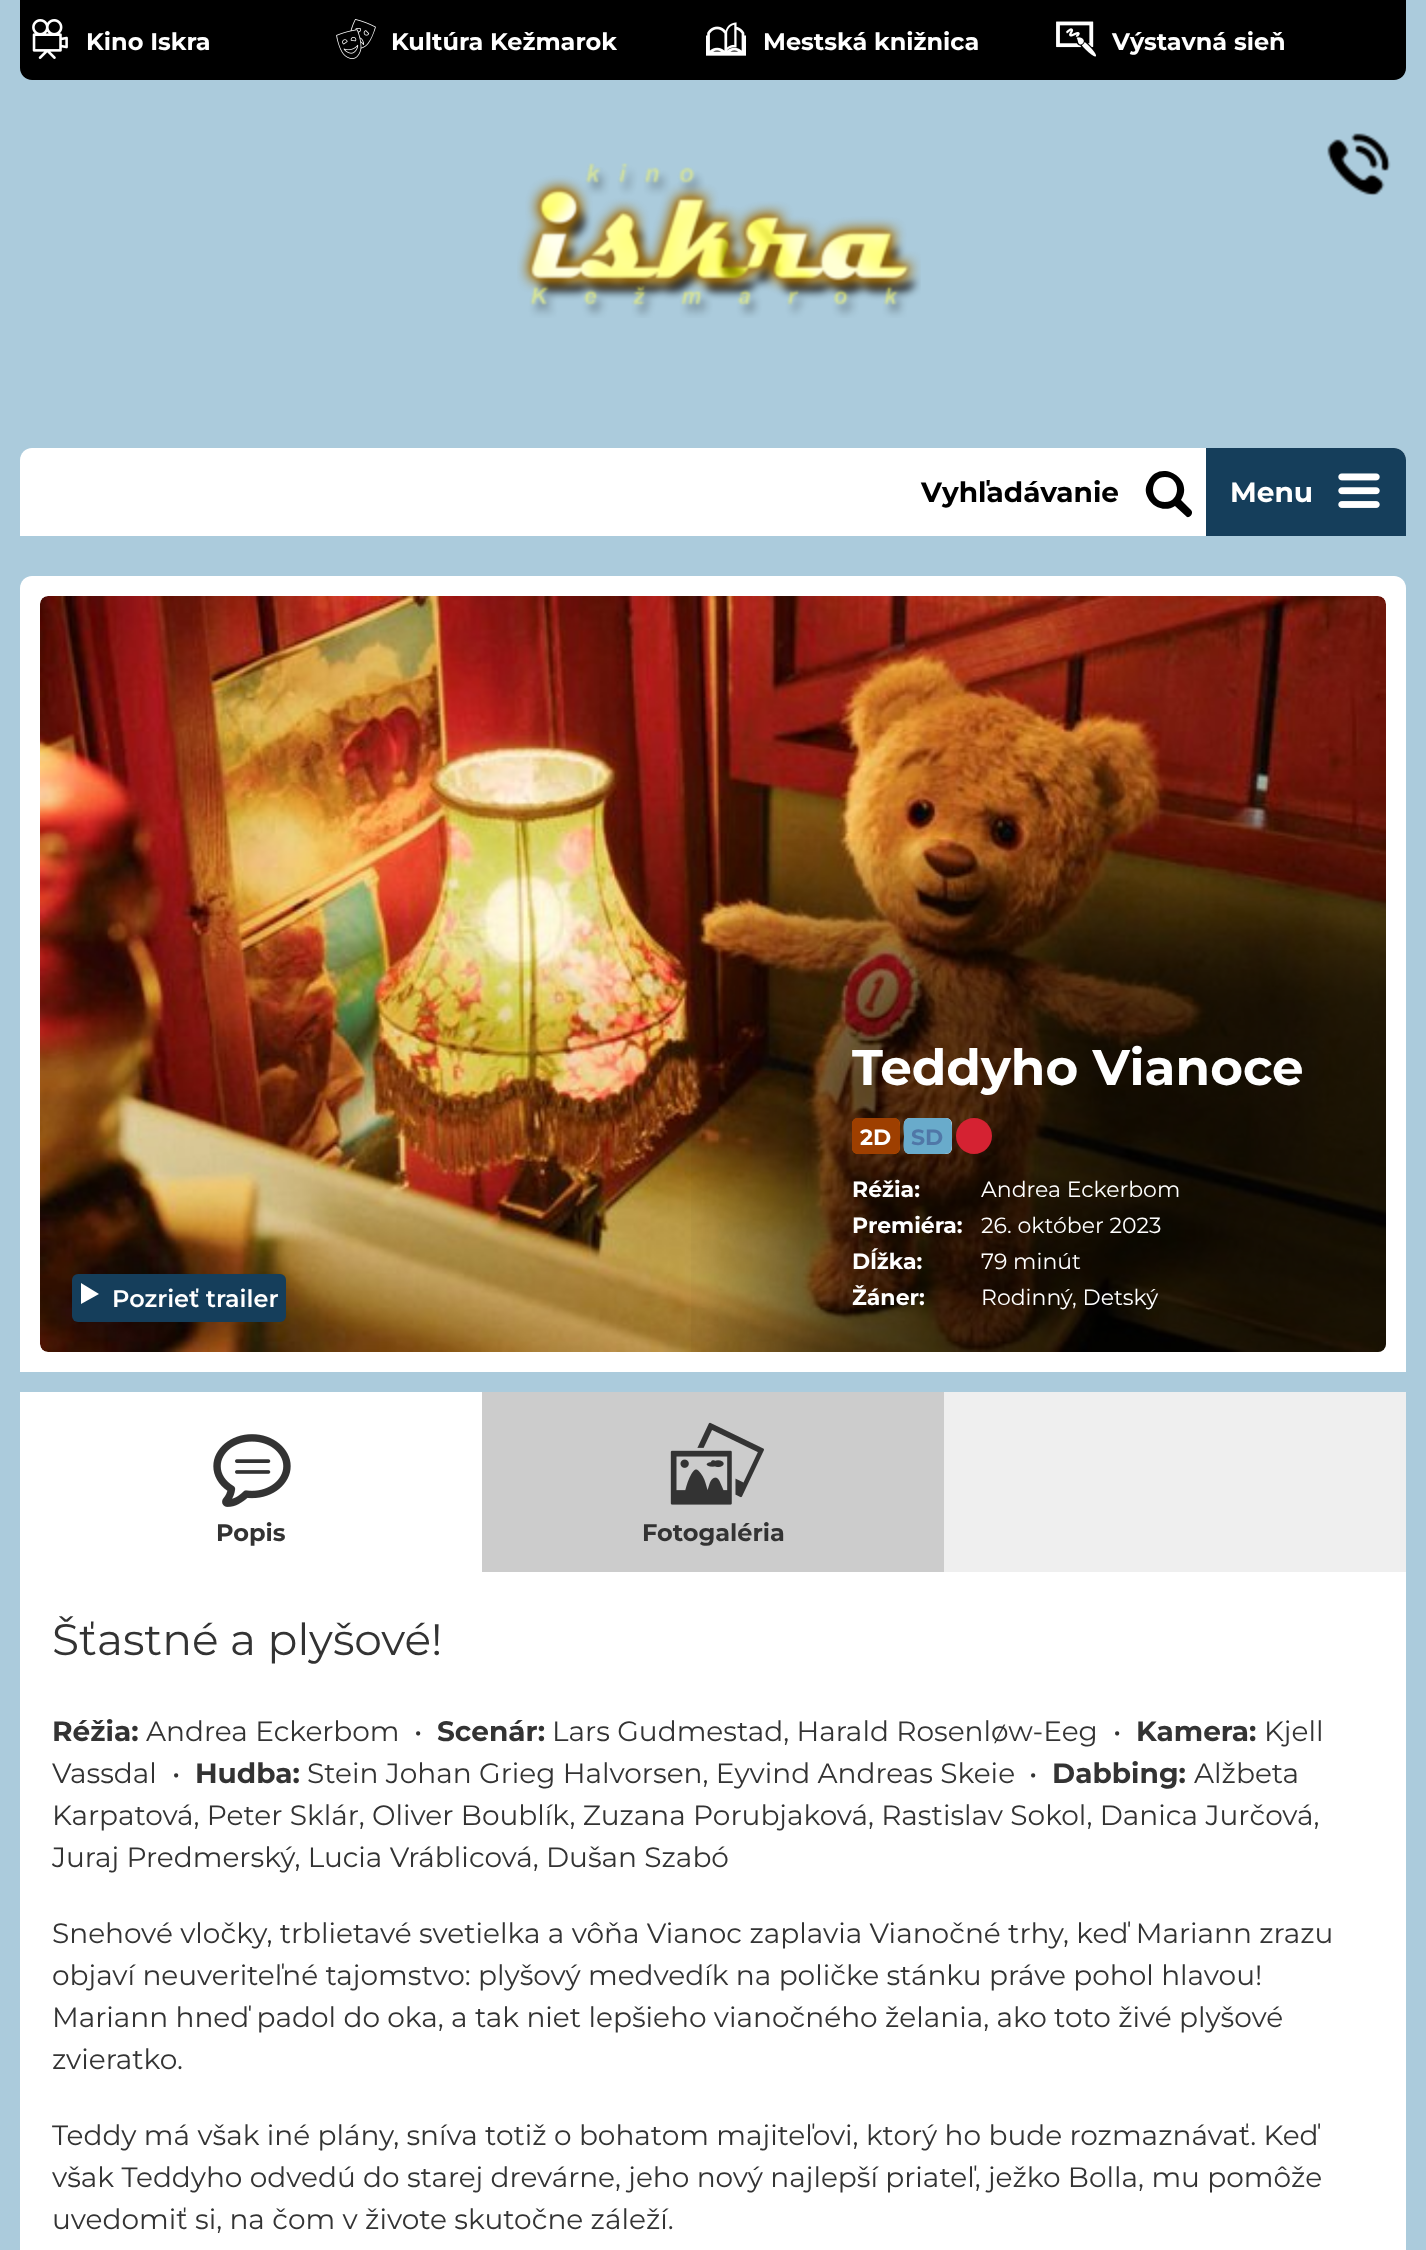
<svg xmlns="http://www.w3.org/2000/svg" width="1426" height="2250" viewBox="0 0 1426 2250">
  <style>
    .t1 { font: bold 24px Montserrat; fill: #fff; }
    .t2 { font: bold 28px Montserrat; fill: #000; }
    .t3 { font: bold 28px Montserrat; fill: #fff; }
    .t4 { font: 600 24px Montserrat; fill: #fff; }
    .t5 { font: bold 50px Montserrat; fill: #fff; }
    .t6 { font: bold 22px Montserrat; fill: #fff; }
    .t7 { font: bold 22px Montserrat; fill: #5077a7; }
    .t8 { font: 22px Montserrat; fill: #fff; }
    .t9 { font: bold 24px Montserrat; fill: #333; }
    .t10 { font: 44px Montserrat; fill: #333; }
    .t11 { font: bold 28px Montserrat; fill: #333; }
    .t12 { font: 28px Montserrat; fill: #333; }
  </style>
  <defs>
    <clipPath id="clip1"><rect x="852" y="1118" width="500" height="36"/></clipPath>
  </defs>
  <rect width="100%" height="100%" fill="#abcbdc"/>
  <path d="M20 0H1406V68C1406 74.5 1400.5 80 1394 80H32C25.5 80 20 74.5 20 68Z" fill="#000"/>
  <image x="32" y="19" width="36" height="40" href="images/1.png"/>
  <text x="86" y="50" class="t1">Kino Iskra</text>
  <image x="336" y="19" width="40" height="40" href="images/2.png"/>
  <text x="391" y="50" class="t1">Kultúra Kežmarok</text>
  <image x="706" y="22" width="40" height="34" href="images/3.png"/>
  <text x="763" y="50" class="t1">Mestská knižnica</text>
  <image x="1056" y="21" width="40" height="36" href="images/4.png"/>
  <text x="1112" y="50" class="t1">Výstavná sieň</text>
  <image x="1327" y="133" width="64" height="63" href="images/5.png"/>
  <image x="517" y="163" width="404" height="155" href="images/6.png"/>
  <path d="M32 448H1394C1400.5 448 1406 453.5 1406 460V536H20V460C20 453.5 25.5 448 32 448Z" fill="#fff"/>
  <text x="921" y="502" class="t2">Vyhľadávanie</text>
  <path d="M1191 510L1181 500C1195 478 1159 458 1148 482C1145 487 1145 493 1148 498C1153 508 1166 512 1175 506L1187 517C1190 518 1194 513 1191 510ZM1165 502C1149 502 1149 477 1165 477C1181 477 1181 502 1165 502Z" fill="#000"/>
  <path d="M1206 448H1394C1400.5 448 1406 453.5 1406 460V536H1206Z" fill="#153e5b"/>
  <text x="1230" y="502" class="t3">Menu</text>
  <image x="1338" y="473" width="42" height="35" href="images/7.png"/>
  <path d="M32 576H1394C1400.5 576 1406 581.5 1406 588V1372H20V588C20 581.5 25.5 576 32 576Z" fill="#fff"/>
  <image x="40" y="596" width="1346" height="756" href="images/8.png"/>
  <image x="691" y="839" width="695" height="513" href="images/9.png"/>
  <rect x="72" y="1274" width="214" height="48" rx="6" fill="#153e5b"/>
  <path d="M81 1283L99 1294L81 1304Z" fill="#fff"/>
  <text x="112" y="1307" class="t4">Pozrieť trailer</text>
  <text x="852" y="1085" class="t5">Teddyho Vianoce</text>
  <rect x="852" y="1118" width="48" height="36" rx="6" fill="#cc5b00"/>
  <g clip-path="url(#clip1)">
    <path d="M858 1118C849 1118 852 1131 852 1136C852 1141 849 1154 858 1154H888C898 1154 900 1154 900 1144V1132C900 1127 901 1118 894 1118Z" fill="#9e3f00"/>
  </g>
  <text x="860" y="1145" class="t6">2D</text>
  <rect x="904" y="1118" width="48" height="36" rx="6" fill="#fff"/>
  <path d="M910 1118C901 1118 904 1131 904 1136C904 1141 901 1154 910 1154H940C950 1154 952 1154 952 1144V1132C952 1127 953 1118 946 1118Z" fill="#69abcb"/>
  <text x="911" y="1145" class="t7">SD</text>
  <path d="M974 1118C964 1118 956 1126 956 1136C956 1146 964 1154 974 1154C984 1154 992 1146 992 1136C992 1126 984 1118 974 1118Z" fill="#d52232"/>
  <text x="852" y="1197" class="t6">Réžia:</text>
  <text x="981" y="1197" class="t8">Andrea Eckerbom</text>
  <text x="852" y="1233" class="t6">Premiéra:</text>
  <text x="981" y="1233" class="t8">26. október 2023</text>
  <text x="852" y="1269" class="t6">Dĺžka:</text>
  <text x="981" y="1269" class="t8">79 minút</text>
  <text x="852" y="1305" class="t6">Žáner:</text>
  <text x="981" y="1305" class="t8">Rodinný, Detský</text>
  <rect x="20" y="1572" width="1386" height="678" fill="#fff"/>
  <rect x="944" y="1392" width="462" height="180" fill="#efefef"/>
  <rect x="20" y="1392" width="462" height="180" fill="#fff"/>
  <image x="213" y="1434" width="78" height="73" href="images/10.png"/>
  <text x="216" y="1541" class="t9">Popis</text>
  <rect x="482" y="1392" width="462" height="180" fill="#ccc"/>
  <image x="670" y="1422" width="94" height="83" href="images/11.png"/>
  <text x="642" y="1541" class="t9">Fotogaléria</text>
  <text x="52" y="1655" class="t10">Šťastné a plyšové!</text>
  <text x="52" y="1741" class="t11">Réžia:</text>
  <text x="146" y="1741" class="t12">Andrea Eckerbom</text>
  <text x="414" y="1741" class="t12">•</text>
  <text x="437" y="1741" class="t11">Scenár:</text>
  <text x="552" y="1741" class="t12">Lars Gudmestad, Harald Rosenløw-Eeg</text>
  <text x="1113" y="1741" class="t12">•</text>
  <text x="1136" y="1741" class="t11">Kamera:</text>
  <text x="1264" y="1741" class="t12">Kjell</text>
  <text x="52" y="1783" class="t12">Vassdal</text>
  <text x="172" y="1783" class="t12">•</text>
  <text x="195" y="1783" class="t11">Hudba:</text>
  <text x="307" y="1783" class="t12">Stein Johan Grieg Halvorsen, Eyvind Andreas Skeie</text>
  <text x="1029" y="1783" class="t12">•</text>
  <text x="1052" y="1783" class="t11">Dabbing:</text>
  <text x="1194" y="1783" class="t12">Alžbeta</text>
  <text x="52" y="1825" class="t12">Karpatová, Peter Sklár, Oliver Boublík, Zuzana Porubjaková, Rastislav Sokol, Danica Jurčová,</text>
  <text x="52" y="1867" class="t12">Juraj Predmerský, Lucia Vráblicová, Dušan Szabó</text>
  <text x="52" y="1943" class="t12">Snehové vločky, trblietavé svetielka a vôňa Vianoc zaplavia Vianočné trhy, keď Mariann zrazu</text>
  <text x="52" y="1985" class="t12">objaví neuveriteľné tajomstvo: plyšový medvedík na poličke stánku práve pohol hlavou!</text>
  <text x="52" y="2027" class="t12">Mariann hneď padol do oka, a tak niet lepšieho vianočného želania, ako toto živé plyšové</text>
  <text x="52" y="2069" class="t12">zvieratko.</text>
  <text x="52" y="2145" class="t12">Teddy má však iné plány, sníva totiž o bohatom majiteľovi, ktorý ho bude rozmaznávať. Keď</text>
  <text x="52" y="2187" class="t12">však Teddyho odvedú do starej drevárne, jeho nový najlepší priateľ, ježko Bolla, mu pomôže</text>
  <text x="52" y="2229" class="t12">uvedomiť si, na čom v živote skutočne záleží.</text>
</svg>
